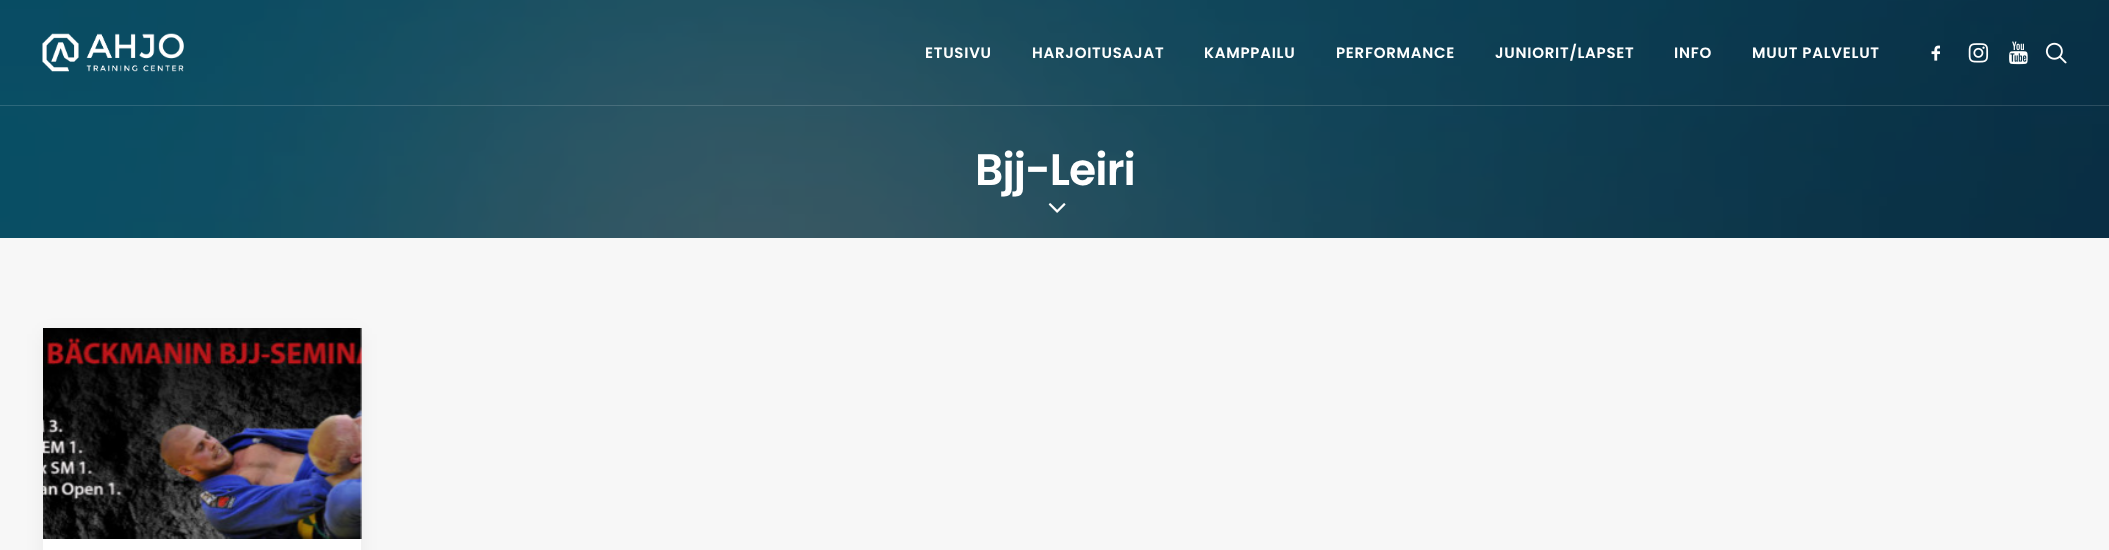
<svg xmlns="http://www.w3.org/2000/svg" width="2109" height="550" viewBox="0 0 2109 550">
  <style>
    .t1 { font: 600 15px Poppins; letter-spacing: 0.75px; fill: #fff; }
    .t2 { font: 600 44px Poppins; letter-spacing: -0.9px; fill: #fff; }
  </style>
  <rect width="100%" height="100%" fill="#fff"/>
  <image x="0" y="0" width="2109" height="238" href="images/6.png"/>
  <rect x="0" y="105" width="2109" height="1" fill="#ffffff26"/>
  <image x="42" y="33" width="142" height="39" href="images/1.png"/>
  <text x="925" y="58" class="t1">ETUSIVU</text>
  <text x="1032" y="58" class="t1">HARJOITUSAJAT</text>
  <text x="1204" y="58" class="t1">KAMPPAILU</text>
  <text x="1336" y="58" class="t1">PERFORMANCE</text>
  <text x="1495" y="58" class="t1">JUNIORIT/LAPSET</text>
  <text x="1674" y="58" class="t1">INFO</text>
  <text x="1752" y="58" class="t1">MUUT PALVELUT</text>
  <image x="1931" y="45" width="9" height="16" href="images/2.png"/>
  <image x="1968" y="43" width="21" height="20" href="images/3.png"/>
  <image x="2009" y="41" width="19" height="24" href="images/4.png"/>
  <image x="2045" y="42" width="22" height="22" href="images/5.png"/>
  <text x="975" y="185" class="t2">Bjj-Leiri</text>
  <image x="1048" y="203" width="18" height="10" href="images/7.png"/>
  <rect x="0" y="238" width="2109" height="312" fill="#f7f7f7"/>
  <rect x="43" y="334" width="318" height="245" fill="#0000000d" filter="blur(9.5px)"/>
  <rect x="43" y="328" width="318" height="222" fill="#fff"/>
  <image x="43" y="328" width="319" height="211" href="images/8.png"/>
</svg>
